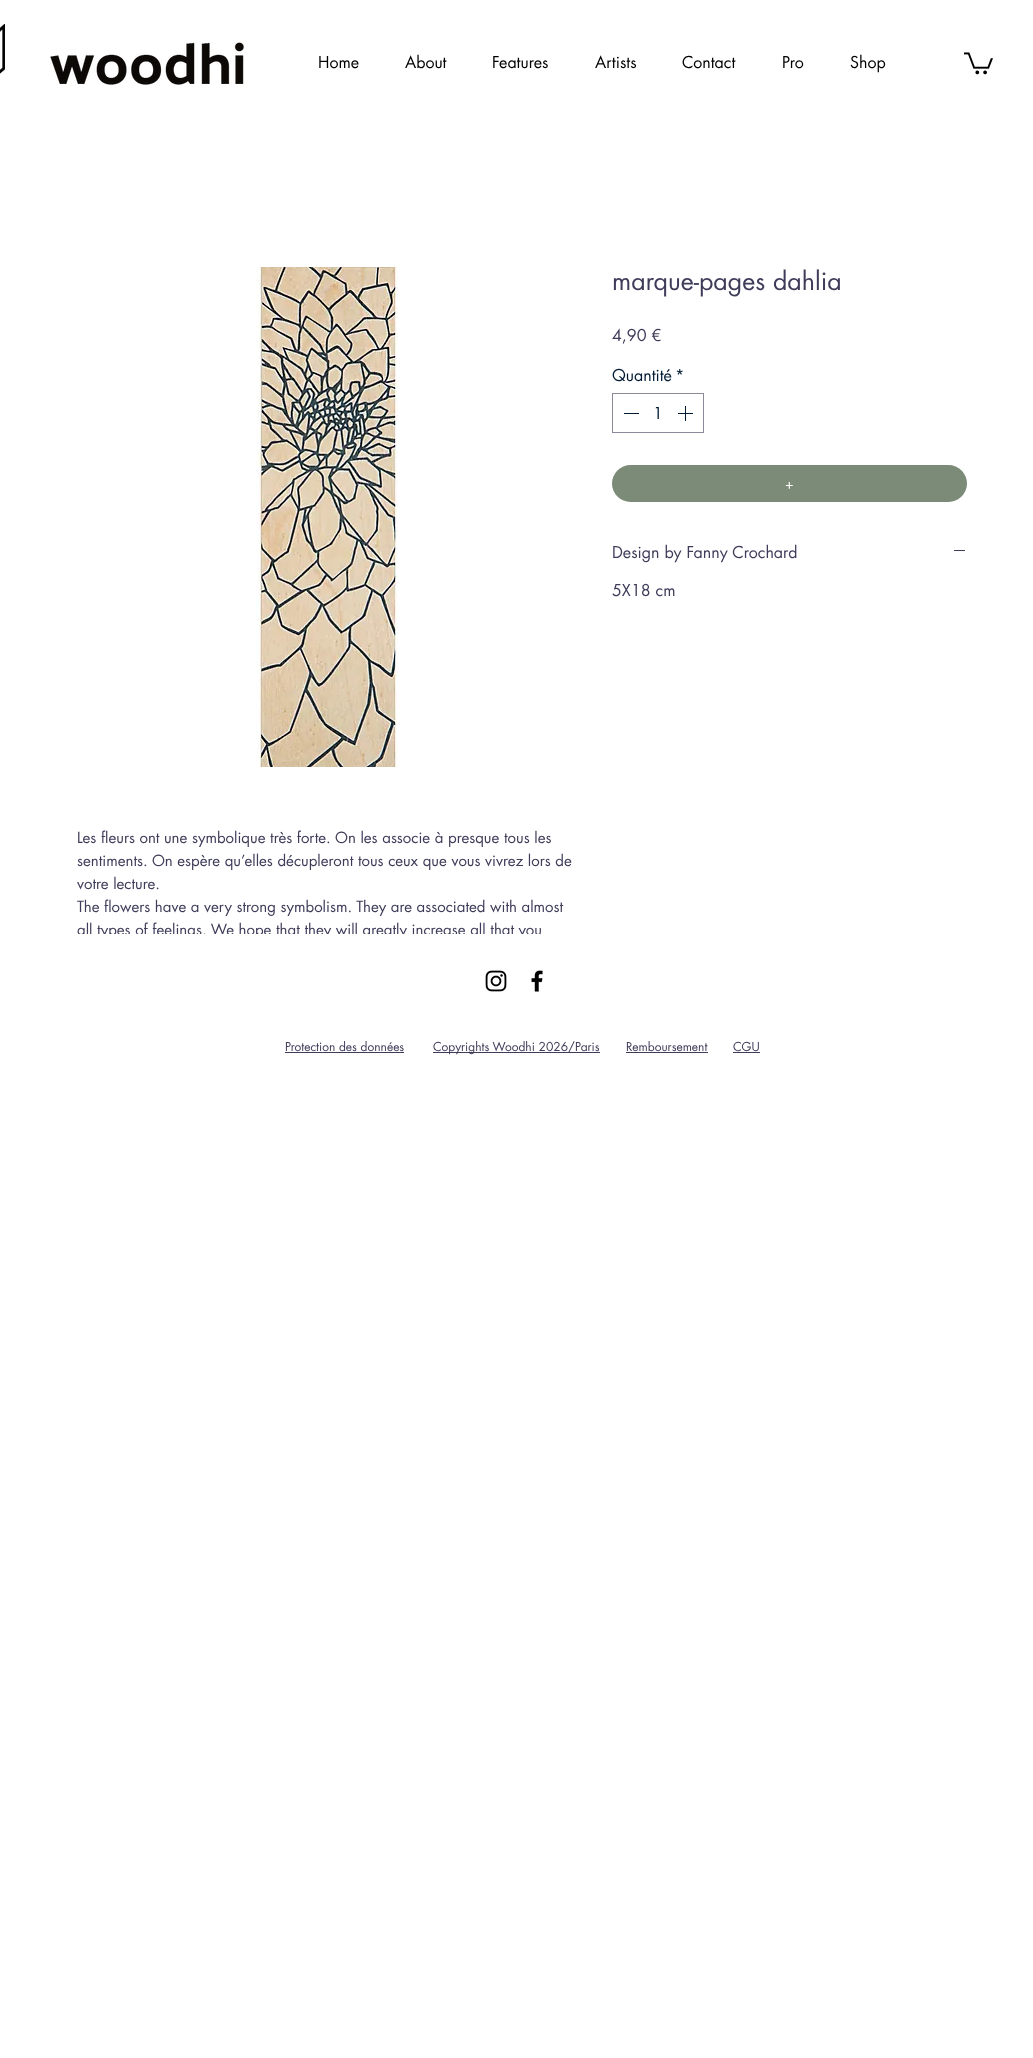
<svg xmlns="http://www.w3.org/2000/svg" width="1033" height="2058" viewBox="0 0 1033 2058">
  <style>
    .t1 { font: 16px futura; fill: #000; }
    .t2 { font: 25px futura; fill: #3e3c59; }
    .t3 { font: 16px futura; fill: #3e3c59; }
    .t4 { font: 16px futura; fill: #001a33; }
    .t5 { font: 14px futura; fill: #fff; }
    .t6 { font: 15px futura; fill: #3e3c59; }
    .t7 { font: 12px futura; fill: #3e3c59; }
  </style>
  <rect width="100%" height="100%" fill="#fff"/>
  <image x="0" y="24" width="5" height="50" href="images/1.png"/>
  <image x="50" y="42" width="194" height="43" href="images/2.png"/>
  <text x="318" y="68" class="t1">Home</text>
  <text x="405" y="68" class="t1">About</text>
  <text x="492" y="68" class="t1">Features</text>
  <text x="595" y="68" class="t1">Artists</text>
  <text x="682" y="68" class="t1">Contact</text>
  <text x="782" y="68" class="t1">Pro</text>
  <text x="850" y="68" class="t1">Shop</text>
  <image x="964" y="52" width="29" height="23" href="images/3.png"/>
  <text x="612" y="290" class="t2">marque-pages dahlia</text>
  <text x="612" y="341" class="t3">4,90 €</text>
  <text x="612" y="381" class="t4">Quantité</text>
  <text x="675" y="381" class="t4">*</text>
  <rect x="612.5" y="393.5" width="91" height="39" fill="none" stroke="#8b8a9b"/>
  <rect x="624" y="413" width="15" height="1" fill="#001a33"/>
  <text x="653" y="419" class="t4">1</text>
  <image x="678" y="406" width="15" height="15" href="images/4.png"/>
  <rect x="612" y="465" width="355" height="37" rx="18.5" fill="#7c8b78"/>
  <text x="785" y="489" class="t5">+</text>
  <text x="612" y="558" class="t3">Design by Fanny Crochard</text>
  <rect x="954" y="550" width="11" height="1" fill="#3e3c59"/>
  <text x="612" y="596" class="t3">5X18 cm</text>
  <image x="256" y="267" width="142" height="500" href="images/5.png"/>
  <text x="77" y="843" class="t6">Les fleurs ont une symbolique très forte. On les associe à presque tous les</text>
  <text x="77" y="866" class="t6">sentiments. On espère qu’elles décupleront tous ceux que vous vivrez lors de</text>
  <text x="77" y="889" class="t6">votre lecture.</text>
  <text x="77" y="912" class="t6">The flowers have a very strong symbolism. They are associated with almost</text>
  <text x="77" y="935" class="t6">all types of feelings. We hope that they will greatly increase all that you</text>
  <rect x="78" y="934" width="462" height="5" fill="#fff"/>
  <image x="485" y="970" width="22" height="22" href="images/6.png"/>
  <image x="531" y="970" width="12" height="22" href="images/7.png"/>
  <text x="285" y="1051" class="t7">Protection des données</text>
  <rect x="285" y="1052" width="119" height="1" fill="#3e3c59"/>
  <rect x="433" y="1052" width="167" height="1" fill="#3e3c59"/>
  <text x="433" y="1051" class="t7">Copyrights Woodhi 2026/Paris</text>
  <text x="626" y="1051" class="t7">Remboursement</text>
  <rect x="626" y="1052" width="82" height="1" fill="#3e3c59"/>
  <text x="733" y="1051" class="t7">CGU</text>
  <rect x="733" y="1052" width="27" height="1" fill="#3e3c59"/>
</svg>
